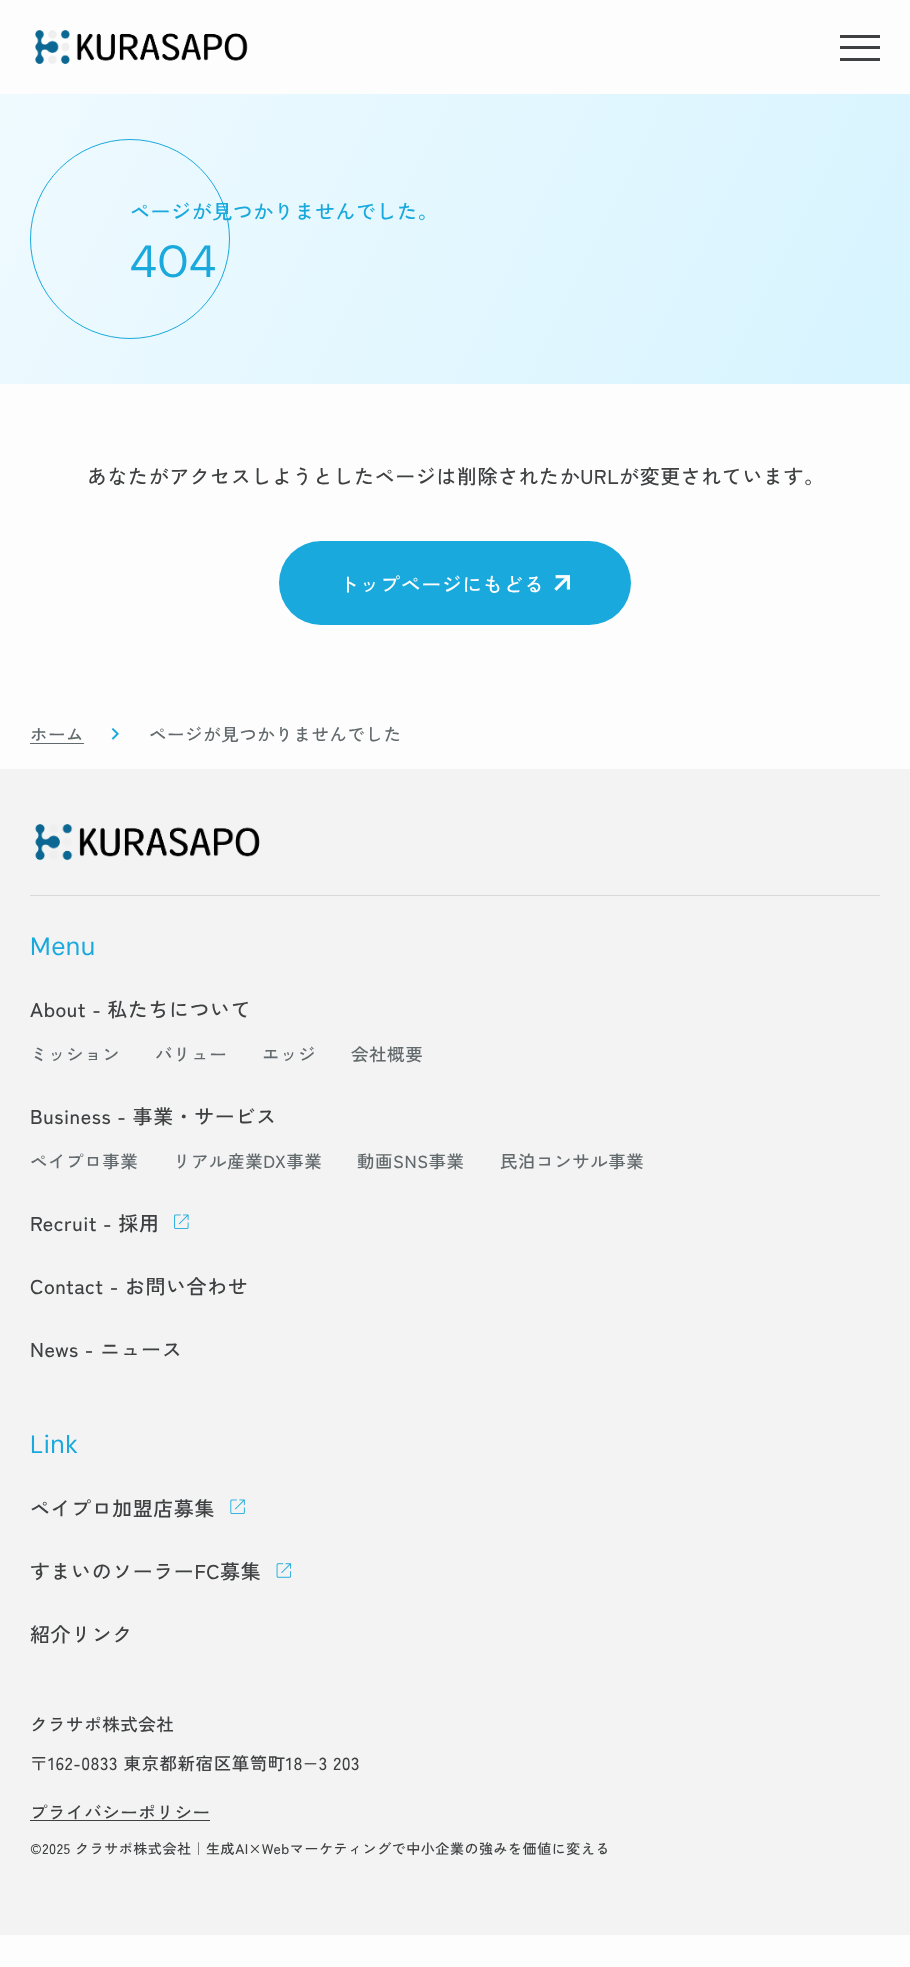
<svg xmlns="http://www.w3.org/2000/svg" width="910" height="1967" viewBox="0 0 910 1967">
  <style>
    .t1 { font: 500 20px Zen Kaku Gothic New; letter-spacing: 0.55px; fill: #19a9dc; }
    .t2 { font: 45px 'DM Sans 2'; letter-spacing: 1px; fill: #19a9dc; }
    .t3 { font: 500 20px Zen Kaku Gothic New; letter-spacing: 0.55px; fill: #3e4042; }
    .t4 { font: 500 20px Zen Kaku Gothic New; letter-spacing: 0.55px; fill: #fdfdfd; }
    .t5 { font: 500 17.5px Zen Kaku Gothic New; letter-spacing: 0.55px; fill: #636a6d; }
    .t6 { font: 25px DM Sans; letter-spacing: 0.5px; fill: #19a9dc; }
    .t7 { font: 500 17.5px Zen Kaku Gothic New; letter-spacing: 0.55px; fill: #3e4042; }
    .t8 { font: 500 14px Zen Kaku Gothic New; letter-spacing: 0.55px; fill: #3e4042; }
  </style>
  <defs>
    <linearGradient id="g1" gradientUnits="userSpaceOnUse" x1="30" y1="32" x2="880" y2="446"><stop offset="0" stop-color="#effaff"/><stop offset="1" stop-color="#d7f4ff"/></linearGradient>
  </defs>
  <rect width="100%" height="100%" fill="#fdfdfd"/>
  <image x="35" y="30" width="213" height="35" href="images/1.png"/>
  <rect x="840" y="35" width="40" height="3" fill="#3e4042"/>
  <rect x="840" y="46" width="40" height="3" fill="#3e4042"/>
  <rect x="840" y="58" width="40" height="3" fill="#3e4042"/>
  <rect x="0" y="94" width="910" height="290" fill="url(#g1)"/>
  <circle cx="130" cy="239" r="99.5" fill="none" stroke="#19a9dc"/>
  <text x="130" y="219" class="t1">ページが見つかりませんでした。</text>
  <text x="130" y="277" class="t2">404</text>
  <text x="87" y="484" class="t3">あなたがアクセスしようとしたページは削除されたかURLが変更されています。</text>
  <rect x="279" y="541" width="352" height="84" rx="42" fill="#19a9dc"/>
  <text x="339" y="592" class="t4">トップページにもどる</text>
  <image x="554" y="575" width="16" height="16" href="images/2.png"/>
  <text x="30" y="741" class="t5">ホーム</text>
  <rect x="30" y="743" width="54" height="1" fill="#636a6d"/>
  <image x="111" y="728" width="8" height="12" href="images/3.png"/>
  <text x="149" y="741" class="t5">ページが見つかりませんでした</text>
  <rect x="0" y="769" width="910" height="1166" fill="#f3f3f3"/>
  <rect x="30" y="895" width="850" height="1" fill="#d9d9d9"/>
  <image x="35" y="824" width="225" height="37" href="images/4.png"/>
  <text x="30" y="955" class="t6">Menu</text>
  <text x="30" y="1017" class="t3">About - 私たちについて</text>
  <text x="30" y="1061" class="t5">ミッション</text>
  <text x="155" y="1061" class="t5">バリュー</text>
  <text x="262" y="1061" class="t5">エッジ</text>
  <text x="351" y="1061" class="t5">会社概要</text>
  <text x="30" y="1124" class="t3">Business - 事業・サービス</text>
  <text x="30" y="1168" class="t5">ペイプロ事業</text>
  <text x="173" y="1168" class="t5">リアル産業DX事業</text>
  <text x="357" y="1168" class="t5">動画SNS事業</text>
  <text x="500" y="1168" class="t5">民泊コンサル事業</text>
  <text x="30" y="1231" class="t3">Recruit - 採用</text>
  <image x="174" y="1214" width="15" height="15" href="images/5.png"/>
  <text x="30" y="1294" class="t3">Contact - お問い合わせ</text>
  <text x="30" y="1357" class="t3">News - ニュース</text>
  <text x="30" y="1453" class="t6">Link</text>
  <text x="30" y="1516" class="t3">ペイプロ加盟店募集</text>
  <image x="230" y="1499" width="15" height="15" href="images/6.png"/>
  <text x="30" y="1579" class="t3">すまいのソーラーFC募集</text>
  <image x="276" y="1563" width="15" height="15" href="images/7.png"/>
  <text x="30" y="1642" class="t3">紹介リンク</text>
  <text x="30" y="1731" class="t7">クラサポ株式会社</text>
  <text x="30" y="1770" class="t7">〒162-0833 東京都新宿区箪笥町18−3 203</text>
  <text x="30" y="1819" class="t7">プライバシーポリシー</text>
  <rect x="30" y="1820" width="180" height="1" fill="#3e4042"/>
  <text x="30" y="1854" class="t8">©2025 クラサポ株式会社｜生成AI×Webマーケティングで中小企業の強みを価値に変える</text>
</svg>
